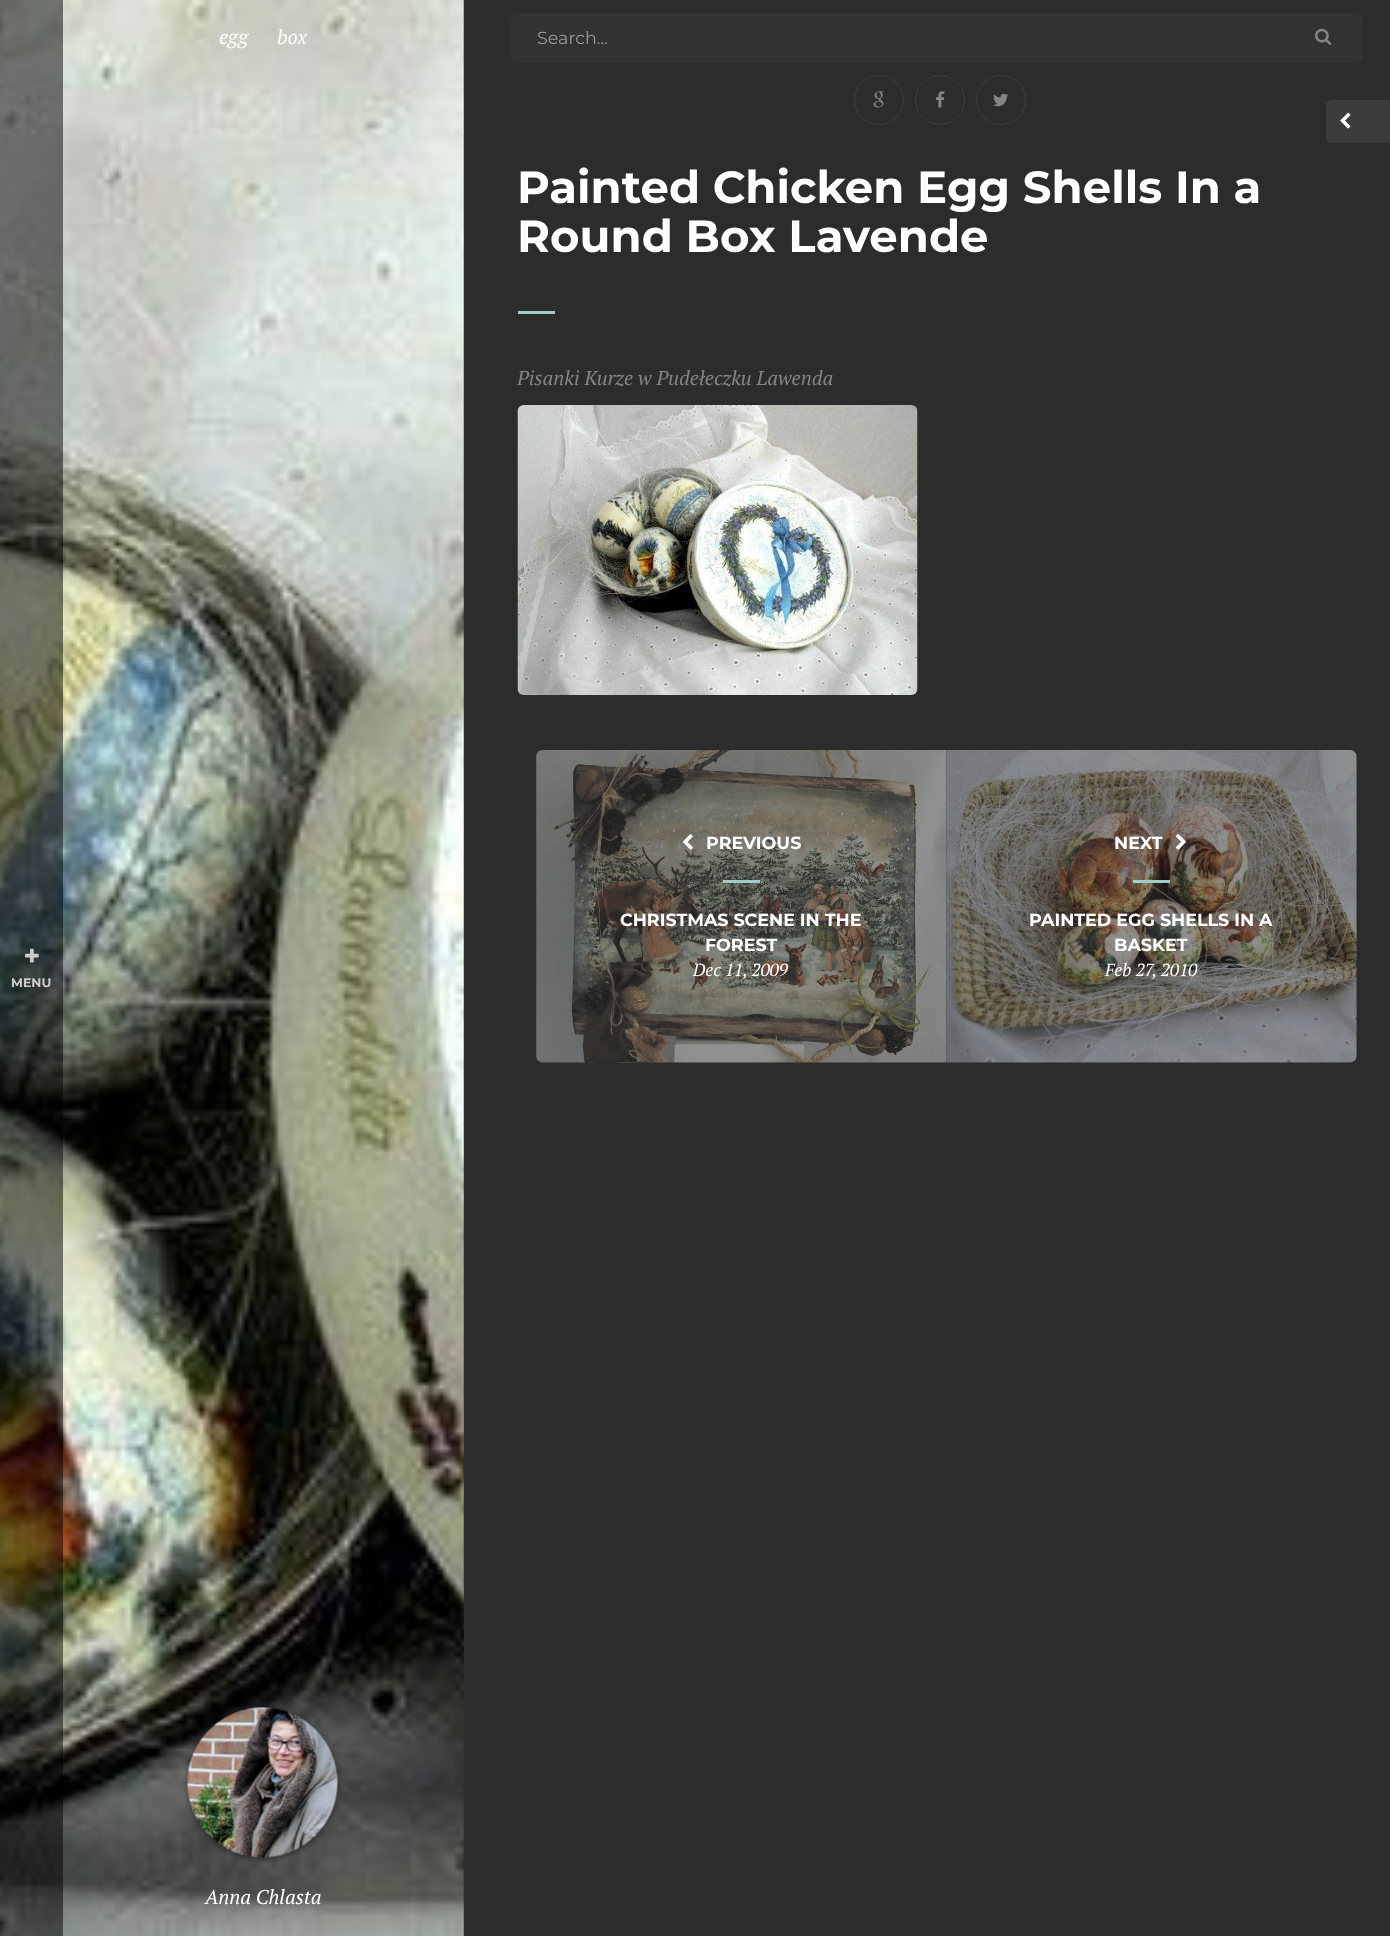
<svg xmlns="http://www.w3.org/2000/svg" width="1390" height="1936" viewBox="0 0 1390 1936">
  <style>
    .t1 { font: bold 12.5px Montserrat; fill: #ccc; }
    .t2 { font: italic 20px PT Serif; fill: #fff; }
    .t3 { font: 17.5px Montserrat; fill: #999; }
    .t4 { font: bold 45px Montserrat; fill: #fff; }
    .t5 { font: italic 20px PT Serif; fill: #858482; }
    .t6 { font: bold 17.5px Montserrat; fill: #fff; }
    .t7 { font: italic 17.5px PT Serif; fill: #fff; }
  </style>
  <rect width="100%" height="100%" fill="#2c2c2c"/>
  <image x="0" y="0" width="464" height="1936" href="images/2.png"/>
  <rect x="0" y="0" width="63" height="1936" fill="#00000080"/>
  <image x="25" y="948" width="14" height="15" href="images/1.png"/>
  <text x="11" y="987" class="t1">MENU</text>
  <text x="219" y="44" class="t2">egg</text>
  <text x="277" y="44" class="t2">box</text>
  <rect x="188" y="1709" width="150" height="150" rx="75" fill="#00000080" filter="blur(3px)"/>
  <image x="187" y="1707" width="151" height="151" href="images/3.png"/>
  <text x="205" y="1904" class="t2">Anna Chlasta</text>
  <rect x="511" y="13" width="852" height="50" rx="6" fill="#323234"/>
  <text x="537" y="44" class="t3">Search...</text>
  <image x="1315" y="28" width="17" height="17" href="images/4.png"/>
  <circle cx="879" cy="100" r="24.5" fill="none" stroke="#3c3c3e"/>
  <image x="873" y="91" width="11" height="17" href="images/5.png"/>
  <circle cx="940" cy="100" r="24.5" fill="none" stroke="#3c3c3e"/>
  <image x="935" y="91" width="10" height="17" href="images/6.png"/>
  <circle cx="1001" cy="100" r="24.5" fill="none" stroke="#3c3c3e"/>
  <image x="993" y="93" width="16" height="14" href="images/7.png"/>
  <text x="517" y="203" class="t4">Painted Chicken Egg Shells In a</text>
  <text x="517" y="252" class="t4">Round Box Lavende</text>
  <rect x="518" y="311" width="37" height="3" fill="#a0cdca"/>
  <text x="517" y="385" class="t5">Pisanki Kurze w Pudełeczku Lawenda</text>
  <image x="517" y="405" width="401" height="290" href="images/8.png"/>
  <image x="536" y="750" width="411" height="313" href="images/9.png"/>
  <path d="M542 750H946V1063H542C538.5 1063 536 1060.5 536 1057V756C536 752.5 538.5 750 542 750Z" fill="#22222280"/>
  <image x="682" y="834" width="11" height="16" href="images/10.png"/>
  <text x="706" y="849" class="t6">PREVIOUS</text>
  <rect x="723" y="880" width="37" height="3" fill="#a0cdca"/>
  <text x="620" y="926" class="t6">CHRISTMAS SCENE IN THE</text>
  <text x="705" y="951" class="t6">FOREST</text>
  <text x="693" y="976" class="t7">Dec 11, 2009</text>
  <image x="946" y="750" width="411" height="313" href="images/11.png"/>
  <path d="M946 750H1350C1353.5 750 1356 752.5 1356 756V1057C1356 1060.5 1353.5 1063 1350 1063H946Z" fill="#22222280"/>
  <text x="1114" y="849" class="t6">NEXT</text>
  <image x="1175" y="834" width="11" height="16" href="images/12.png"/>
  <rect x="1133" y="880" width="37" height="3" fill="#a0cdca"/>
  <text x="1029" y="926" class="t6">PAINTED EGG SHELLS IN A</text>
  <text x="1114" y="951" class="t6">BASKET</text>
  <text x="1105" y="976" class="t7">Feb 27, 2010</text>
  <rect x="1380" y="100" width="10" height="43" fill="#3c3c3e"/>
  <path d="M1332 100H1380V143H1332C1328.5 143 1326 140.5 1326 137V106C1326 102.5 1328.5 100 1332 100Z" fill="#3c3c3e"/>
  <image x="1340" y="112" width="11" height="17" href="images/13.png"/>
</svg>
